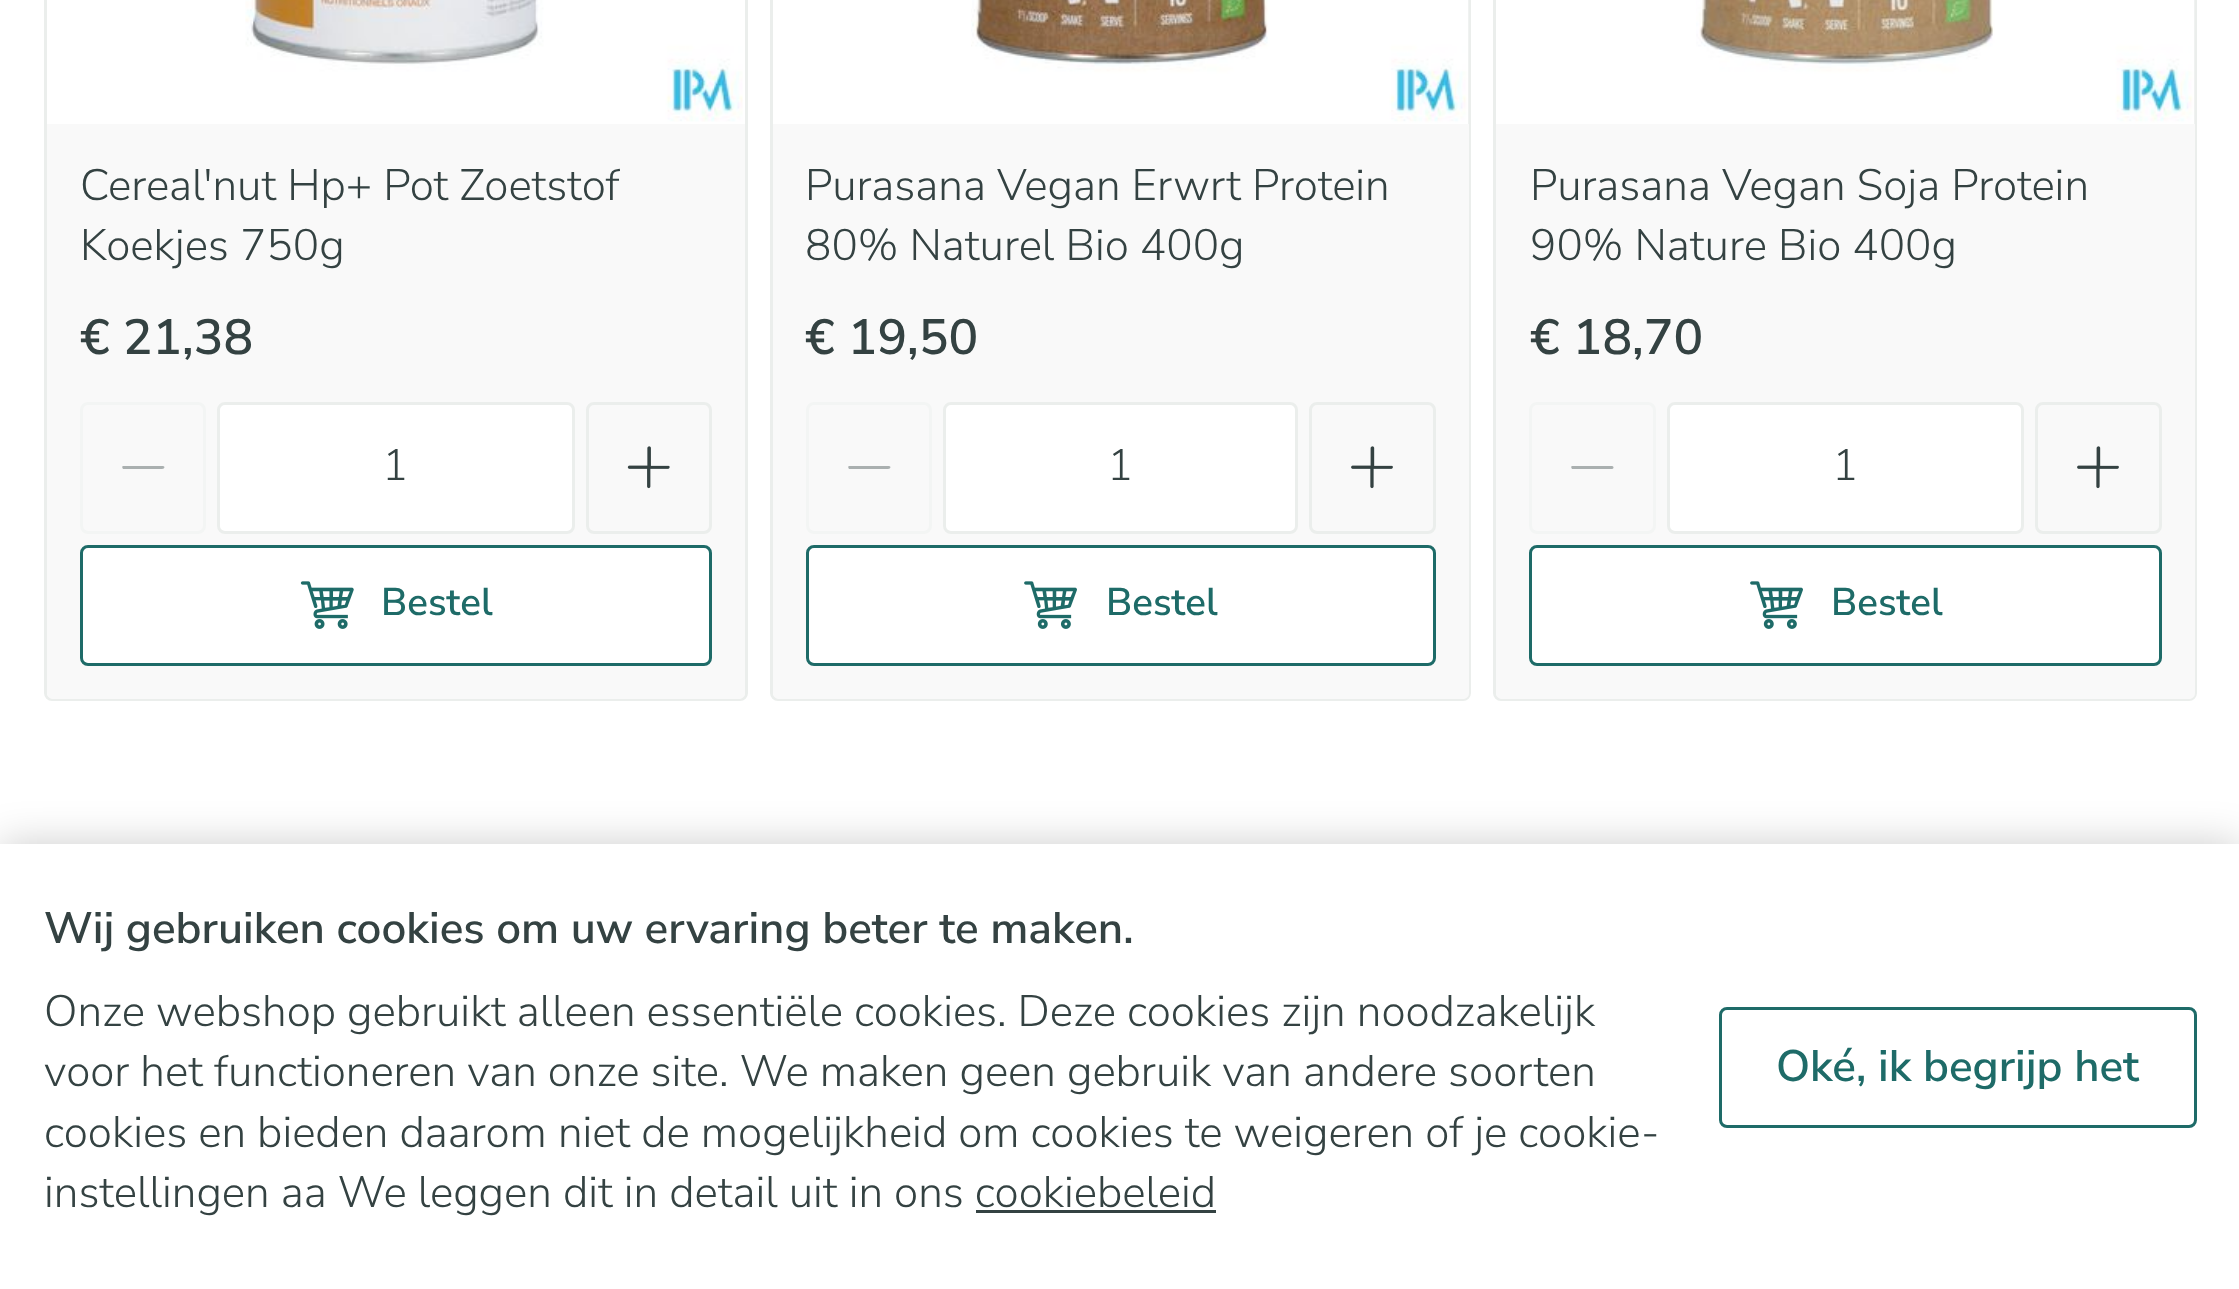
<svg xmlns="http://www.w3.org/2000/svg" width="2239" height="1289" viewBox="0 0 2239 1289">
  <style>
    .t1 { font: 300 44px Nunito Sans; fill: #344242; }
    .t2 { font: 600 49.5px Nunito Sans; fill: #344242; }
    .t3 { font: 600 38.5px Nunito Sans; fill: #1e6b68; }
    .t4 { font: 600 44px Nunito Sans; fill: #344242; }
    .t5 { font: 600 44px Nunito Sans; fill: #1e6b68; }
  </style>
  <rect width="100%" height="100%" fill="#fff"/>
  <rect x="45.5" y="-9.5" width="701" height="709" rx="6.5" fill="none" stroke="#ebeeec" stroke-width="3"/>
  <image x="245" y="0" width="498" height="122" href="images/1.png"/>
  <path d="M47 124H745V693C745 696.5 742.5 699 739 699H53C49.5 699 47 696.5 47 693Z" fill="#f9f9f9"/>
  <text x="80" y="200" class="t1">Cereal'nut Hp+ Pot Zoetstof</text>
  <text x="80" y="260" class="t1">Koekjes 750g</text>
  <text x="80" y="354" class="t2">€ 21,38</text>
  <rect x="81.5" y="403.5" width="123" height="129" rx="6.5" fill="none" stroke="#f3f5f4" stroke-width="3"/>
  <path d="M162 469H123C122 468 122 466 123 466H163C165 466 165 469 162 469Z" fill="#aab0b0"/>
  <rect x="218.5" y="403.5" width="355" height="129" rx="6.5" fill="#fff" stroke="#ebeeec" stroke-width="3"/>
  <text x="382" y="480" class="t1">1</text>
  <rect x="587.5" y="403.5" width="123" height="129" rx="6.5" fill="none" stroke="#ebeeec" stroke-width="3"/>
  <image x="627" y="446" width="43" height="43" href="images/2.png"/>
  <rect x="81.5" y="546.5" width="629" height="118" rx="6.5" fill="#fff" stroke="#1e6b68" stroke-width="3"/>
  <image x="300" y="581" width="54" height="48" href="images/3.png"/>
  <text x="381" y="615" class="t3">Bestel</text>
  <rect x="771.5" y="-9.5" width="698" height="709" rx="6.5" fill="none" stroke="#ebeeec" stroke-width="3"/>
  <image x="971" y="0" width="498" height="124" href="images/4.png"/>
  <path d="M773 124H1469V693C1469 696.5 1466.5 699 1463 699H779C775.5 699 773 696.5 773 693Z" fill="#f9f9f9"/>
  <text x="805" y="200" class="t1">Purasana Vegan Erwrt Protein</text>
  <text x="805" y="260" class="t1">80% Naturel Bio 400g</text>
  <text x="805" y="354" class="t2">€ 19,50</text>
  <rect x="807.5" y="403.5" width="123" height="129" rx="6.5" fill="none" stroke="#f3f5f4" stroke-width="3"/>
  <path d="M888 469H849C848 468 848 466 849 466H889C891 466 891 469 888 469Z" fill="#aab0b0"/>
  <rect x="944.5" y="403.5" width="352" height="129" rx="6.5" fill="#fff" stroke="#ebeeec" stroke-width="3"/>
  <text x="1107" y="480" class="t1">1</text>
  <rect x="1310.5" y="403.5" width="124" height="129" rx="6.5" fill="none" stroke="#ebeeec" stroke-width="3"/>
  <image x="1351" y="446" width="42" height="43" href="images/5.png"/>
  <rect x="807.5" y="546.5" width="627" height="118" rx="6.5" fill="#fff" stroke="#1e6b68" stroke-width="3"/>
  <image x="1024" y="581" width="53" height="48" href="images/6.png"/>
  <text x="1106" y="615" class="t3">Bestel</text>
  <rect x="1494.5" y="-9.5" width="701" height="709" rx="6.5" fill="none" stroke="#ebeeec" stroke-width="3"/>
  <image x="1696" y="0" width="499" height="124" href="images/7.png"/>
  <path d="M1496 124H2195V693C2195 696.5 2192.5 699 2189 699H1502C1498.5 699 1496 696.5 1496 693Z" fill="#f9f9f9"/>
  <text x="1530" y="200" class="t1">Purasana Vegan Soja Protein</text>
  <text x="1530" y="260" class="t1">90% Nature Bio 400g</text>
  <text x="1530" y="354" class="t2">€ 18,70</text>
  <rect x="1530.5" y="403.5" width="124" height="129" rx="6.5" fill="none" stroke="#f3f5f4" stroke-width="3"/>
  <path d="M1612 469H1572C1571 468 1571 466 1572 466H1612C1614 466 1614 469 1612 469Z" fill="#aab0b0"/>
  <rect x="1668.5" y="403.5" width="354" height="129" rx="6.5" fill="#fff" stroke="#ebeeec" stroke-width="3"/>
  <text x="1832" y="480" class="t1">1</text>
  <rect x="2036.5" y="403.5" width="124" height="129" rx="6.5" fill="none" stroke="#ebeeec" stroke-width="3"/>
  <image x="2077" y="446" width="42" height="43" href="images/5.png"/>
  <rect x="1530.5" y="546.5" width="630" height="118" rx="6.5" fill="#fff" stroke="#1e6b68" stroke-width="3"/>
  <image x="1750" y="581" width="53" height="48" href="images/6.png"/>
  <text x="1831" y="615" class="t3">Bestel</text>
  <rect x="0" y="844" width="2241" height="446" fill="#00000033" filter="blur(20.5px)"/>
  <rect x="0" y="844" width="2239" height="445" fill="#fff"/>
  <text x="44" y="943" class="t4">Wij gebruiken cookies om uw ervaring beter te maken.</text>
  <text x="44" y="1026" class="t1">Onze webshop gebruikt alleen essentiële cookies. Deze cookies zijn noodzakelijk</text>
  <text x="44" y="1086" class="t1">voor het functioneren van onze site. We maken geen gebruik van andere soorten</text>
  <text x="44" y="1147" class="t1">cookies en bieden daarom niet de mogelijkheid om cookies te weigeren of je cookie-</text>
  <text x="44" y="1207" class="t1">instellingen aa We leggen dit in detail uit in ons cookiebeleid</text>
  <rect x="976" y="1210" width="240" height="3" fill="#344242"/>
  <rect x="1720.5" y="1008.5" width="475" height="118" rx="6.5" fill="none" stroke="#1e6b68" stroke-width="3"/>
  <text x="1776" y="1081" class="t5">Oké, ik begrijp het</text>
</svg>
